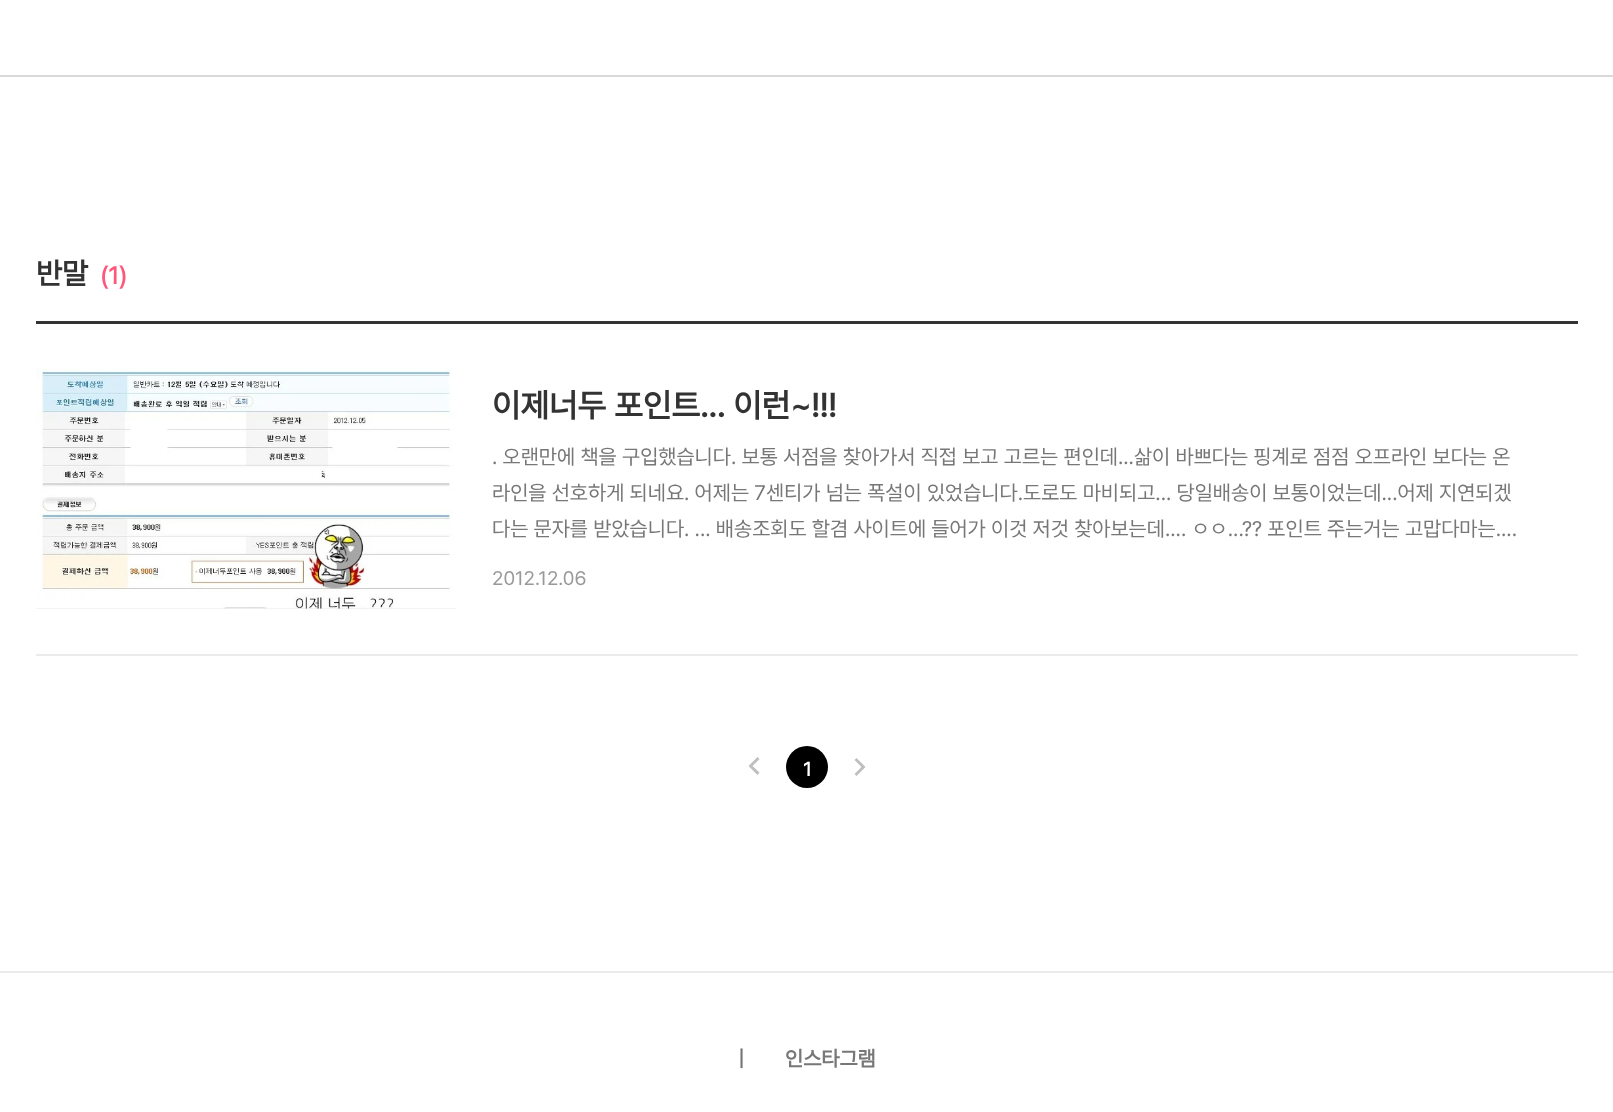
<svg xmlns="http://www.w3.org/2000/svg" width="1613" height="1112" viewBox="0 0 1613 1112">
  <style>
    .t1 { font: bold 30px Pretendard; fill: #333; }
    .t2 { font: bold 24px Pretendard; fill: #ff567a; }
    .t3 { font: bold 33px Pretendard; fill: #333; }
    .t4 { font: 21px Pretendard; fill: #777; }
    .t5 { font: 19.5px Pretendard; fill: #999; }
    .t6 { font: bold 19.5px Pretendard; fill: #fff; }
    .t7 { font: bold 21px Pretendard; fill: #777; }
  </style>
  <rect width="100%" height="100%" fill="#fff"/>
  <rect x="0" y="75" width="1613" height="2" fill="#d9d9d9"/>
  <text x="36" y="284" class="t1">반말</text>
  <text x="100" y="284" class="t2">(1)</text>
  <rect x="36" y="321" width="1542" height="3" fill="#333"/>
  <rect x="36" y="654" width="1542" height="2" fill="#ebebeb"/>
  <rect x="36" y="608" width="420" height="1" fill="#e9e9e9"/>
  <image x="36" y="368" width="420" height="241" href="images/1.png"/>
  <text x="492" y="417" class="t3">이제너두 포인트... 이런~!!!</text>
  <text x="492" y="464" class="t4">. 오랜만에 책을 구입했습니다. 보통 서점을 찾아가서 직접 보고 고르는 편인데...삶이 바쁘다는 핑계로 점점 오프라인 보다는 온</text>
  <text x="492" y="500" class="t4">라인을 선호하게 되네요. 어제는 7센티가 넘는 폭설이 있었습니다.도로도 마비되고... 당일배송이 보통이었는데...어제 지연되겠</text>
  <text x="492" y="536" class="t4">다는 문자를 받았습니다. ... 배송조회도 할겸 사이트에 들어가 이것 저것 찾아보는데.... ㅇㅇ...?? 포인트 주는거는 고맙다마는....</text>
  <text x="492" y="585" class="t5">2012.12.06</text>
  <path d="M759.5 759L757.5 757L748.5 766L757.5 775L759.5 772.5L752.5 766Z" fill="#bfbfbf"/>
  <circle cx="807" cy="767" r="21" fill="#000"/>
  <text x="803" y="776" class="t6">1</text>
  <path d="M854.5 774L861.5 767L854.5 760L856.5 758L865.5 767L856.5 776Z" fill="#bfbfbf"/>
  <rect x="0" y="971" width="1613" height="2" fill="#ebebeb"/>
  <text x="738" y="1066" class="t7">|</text>
  <text x="785" y="1066" class="t7">인스타그램</text>
</svg>
